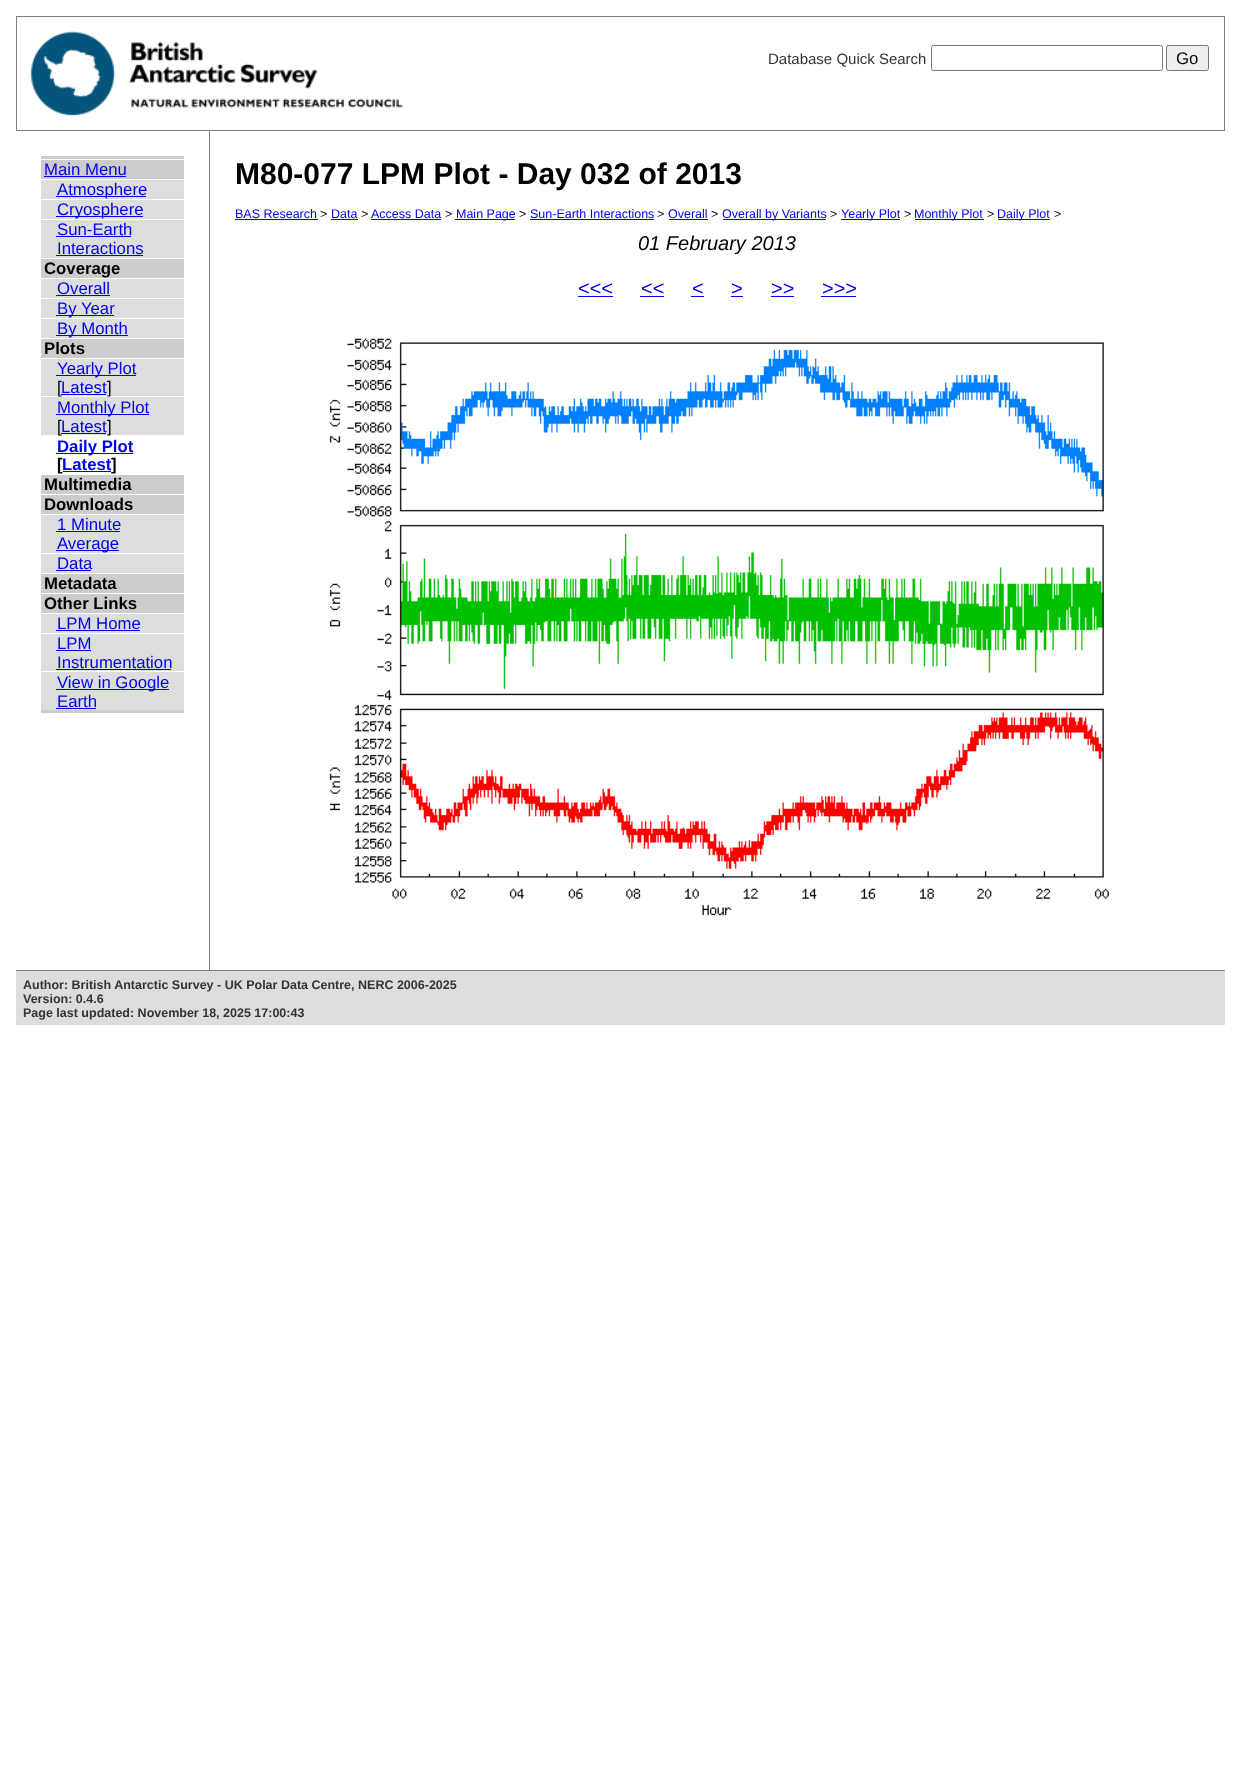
<svg xmlns="http://www.w3.org/2000/svg" width="1241" height="1771" viewBox="0 0 1241 1771">
  <style>
    .t1 { font: 15px Liberation Sans; fill: #333; }
    .t2 { font: 16.75px Liberation Sans; fill: #000; }
    .t3 { font: 16.75px Liberation Sans; fill: #00e; }
    .t4 { font: bold 16.75px Liberation Sans; fill: #000; }
    .t5 { font: bold 16.75px Liberation Sans; fill: #00e; }
    .t6 { font: bold 30px Liberation Sans; fill: #000; }
    .t7 { font: 12.5px Liberation Sans; fill: #00e; }
    .t8 { font: 12.5px Liberation Sans; fill: #000; }
    .t9 { font: italic 20px Liberation Sans; fill: #000; }
    .t10 { font: 20px Liberation Sans; fill: #00e; }
    .t11 { font: bold 12.5px Liberation Sans; fill: #333; }
  </style>
  <rect width="100%" height="100%" fill="#fff"/>
  <rect x="16.5" y="16.5" width="1208" height="114" fill="none" stroke="#808080"/>
  <image x="30" y="31" width="373" height="86" href="images/1.png"/>
  <text x="768" y="64" class="t1">Database Quick Search</text>
  <rect x="931.5" y="45.5" width="231" height="25" rx="2" fill="none" stroke="#767676"/>
  <rect x="1166.5" y="45.5" width="42" height="25" rx="2" fill="#efefef" stroke="#767676"/>
  <text x="1176" y="64" class="t2">Go</text>
  <rect x="209" y="131" width="1" height="839" fill="#808080"/>
  <rect x="41" y="156" width="143" height="557" fill="#ccc"/>
  <rect x="41" y="159" width="143" height="1" fill="#fff"/>
  <text x="44" y="175" class="t3">Main Menu</text>
  <rect x="44" y="176" width="82" height="1" fill="#00e"/>
  <rect x="41" y="180" width="143" height="78" fill="#ddd"/>
  <rect x="41" y="179" width="143" height="1" fill="#fff"/>
  <rect x="56" y="196" width="90" height="1" fill="#00e"/>
  <text x="57" y="195" class="t3">Atmosphere</text>
  <rect x="41" y="199" width="143" height="1" fill="#fff"/>
  <rect x="56" y="216" width="87" height="1" fill="#00e"/>
  <text x="57" y="215" class="t3">Cryosphere</text>
  <rect x="41" y="219" width="143" height="1" fill="#fff"/>
  <text x="57" y="235" class="t3">Sun-Earth</text>
  <rect x="56" y="236" width="75" height="1" fill="#00e"/>
  <text x="57" y="254" class="t3">Interactions</text>
  <rect x="56" y="255" width="87" height="1" fill="#00e"/>
  <rect x="41" y="258" width="143" height="1" fill="#fff"/>
  <text x="44" y="274" class="t4">Coverage</text>
  <rect x="41" y="279" width="143" height="59" fill="#ddd"/>
  <rect x="41" y="278" width="143" height="1" fill="#fff"/>
  <text x="57" y="294" class="t3">Overall</text>
  <rect x="56" y="295" width="54" height="1" fill="#00e"/>
  <rect x="41" y="298" width="143" height="1" fill="#fff"/>
  <rect x="56" y="315" width="58" height="1" fill="#00e"/>
  <text x="57" y="314" class="t3">By Year</text>
  <rect x="41" y="318" width="143" height="1" fill="#fff"/>
  <rect x="56" y="335" width="72" height="1" fill="#00e"/>
  <text x="57" y="334" class="t3">By Month</text>
  <rect x="41" y="338" width="143" height="1" fill="#fff"/>
  <text x="44" y="354" class="t4">Plots</text>
  <rect x="41" y="359" width="143" height="37" fill="#ddd"/>
  <rect x="41" y="358" width="143" height="1" fill="#fff"/>
  <rect x="56" y="375" width="80" height="1" fill="#00e"/>
  <text x="57" y="374" class="t3">Yearly Plot</text>
  <rect x="41" y="396" width="143" height="1" fill="#fff"/>
  <text x="57" y="393" class="t2">[</text>
  <text x="61" y="393" class="t3">Latest</text>
  <rect x="61" y="394" width="45" height="1" fill="#00e"/>
  <text x="107" y="393" class="t2">]</text>
  <rect x="41" y="397" width="143" height="38" fill="#ddd"/>
  <rect x="56" y="414" width="93" height="1" fill="#00e"/>
  <text x="57" y="413" class="t3">Monthly Plot</text>
  <rect x="41" y="435" width="143" height="40" fill="#fff"/>
  <text x="57" y="432" class="t2">[</text>
  <text x="61" y="432" class="t3">Latest</text>
  <rect x="61" y="433" width="45" height="1" fill="#00e"/>
  <text x="107" y="432" class="t2">]</text>
  <rect x="56" y="453" width="77" height="1" fill="#00e"/>
  <text x="57" y="452" class="t5">Daily Plot</text>
  <text x="57" y="470" class="t4">[</text>
  <text x="62" y="470" class="t5">Latest</text>
  <rect x="63" y="471" width="48" height="1" fill="#00e"/>
  <text x="111" y="470" class="t4">]</text>
  <text x="44" y="490" class="t4">Multimedia</text>
  <rect x="41" y="494" width="143" height="1" fill="#fff"/>
  <text x="44" y="510" class="t4">Downloads</text>
  <rect x="41" y="515" width="143" height="58" fill="#ddd"/>
  <rect x="41" y="514" width="143" height="1" fill="#fff"/>
  <text x="57" y="530" class="t3">1 Minute</text>
  <rect x="56" y="531" width="64" height="1" fill="#00e"/>
  <rect x="56" y="550" width="63" height="1" fill="#00e"/>
  <text x="57" y="549" class="t3">Average</text>
  <rect x="41" y="553" width="143" height="1" fill="#fff"/>
  <text x="57" y="569" class="t3">Data</text>
  <rect x="56" y="570" width="35" height="1" fill="#00e"/>
  <rect x="41" y="573" width="143" height="1" fill="#fff"/>
  <text x="44" y="589" class="t4">Metadata</text>
  <rect x="41" y="593" width="143" height="1" fill="#fff"/>
  <text x="44" y="609" class="t4">Other Links</text>
  <rect x="41" y="614" width="143" height="96" fill="#ddd"/>
  <rect x="41" y="613" width="143" height="1" fill="#fff"/>
  <text x="57" y="629" class="t3">LPM Home</text>
  <rect x="56" y="630" width="84" height="1" fill="#00e"/>
  <rect x="41" y="633" width="143" height="1" fill="#fff"/>
  <text x="57" y="649" class="t3">LPM</text>
  <rect x="56" y="650" width="35" height="1" fill="#00e"/>
  <text x="57" y="668" class="t3">Instrumentation</text>
  <rect x="56" y="669" width="115" height="1" fill="#00e"/>
  <rect x="41" y="671" width="143" height="1" fill="#fff"/>
  <rect x="56" y="689" width="113" height="1" fill="#00e"/>
  <text x="57" y="688" class="t3">View in Google</text>
  <text x="57" y="707" class="t3">Earth</text>
  <rect x="56" y="708" width="40" height="1" fill="#00e"/>
  <text x="235" y="184" class="t6">M80-077 LPM Plot - Day 032 of 2013</text>
  <text x="235" y="218" class="t7">BAS Research</text>
  <rect x="235" y="219" width="83" height="1" fill="#00e"/>
  <text x="320" y="218" class="t8">&gt;</text>
  <text x="331" y="218" class="t7">Data</text>
  <rect x="331" y="219" width="27" height="1" fill="#00e"/>
  <text x="361" y="218" class="t8">&gt;</text>
  <text x="371" y="218" class="t7">Access Data</text>
  <rect x="371" y="219" width="70" height="1" fill="#00e"/>
  <text x="445" y="218" class="t8">&gt;</text>
  <rect x="455" y="219" width="60" height="1" fill="#00e"/>
  <text x="456" y="218" class="t7">Main Page</text>
  <text x="519" y="218" class="t8">&gt;</text>
  <text x="530" y="218" class="t7">Sun-Earth Interactions</text>
  <rect x="530" y="219" width="124" height="1" fill="#00e"/>
  <text x="657" y="218" class="t8">&gt;</text>
  <text x="668" y="218" class="t7">Overall</text>
  <rect x="669" y="219" width="39" height="1" fill="#00e"/>
  <text x="711" y="218" class="t8">&gt;</text>
  <rect x="723" y="219" width="103" height="1" fill="#00e"/>
  <text x="722" y="218" class="t7">Overall by Variants</text>
  <text x="830" y="218" class="t8">&gt;</text>
  <rect x="841" y="219" width="59" height="1" fill="#00e"/>
  <text x="841" y="218" class="t7">Yearly Plot</text>
  <text x="904" y="218" class="t8">&gt;</text>
  <rect x="915" y="219" width="69" height="1" fill="#00e"/>
  <text x="914" y="218" class="t7">Monthly Plot</text>
  <text x="987" y="218" class="t8">&gt;</text>
  <rect x="998" y="219" width="52" height="1" fill="#00e"/>
  <text x="997" y="218" class="t7">Daily Plot</text>
  <text x="1054" y="218" class="t8">&gt;</text>
  <text x="638" y="250" class="t9">01 February 2013</text>
  <text x="578" y="295" class="t10">&lt;&lt;&lt;</text>
  <rect x="578" y="296" width="35" height="1" fill="#00e"/>
  <text x="641" y="295" class="t10">&lt;&lt;</text>
  <rect x="640" y="296" width="24" height="1" fill="#00e"/>
  <text x="692" y="295" class="t10">&lt;</text>
  <rect x="691" y="296" width="13" height="1" fill="#00e"/>
  <text x="731" y="295" class="t10">&gt;</text>
  <rect x="731" y="296" width="12" height="1" fill="#00e"/>
  <text x="771" y="295" class="t10">&gt;&gt;</text>
  <rect x="771" y="296" width="23" height="1" fill="#00e"/>
  <text x="822" y="295" class="t10">&gt;&gt;&gt;</text>
  <rect x="821" y="296" width="35" height="1" fill="#00e"/>
  <image x="329" y="338" width="780" height="578" href="images/2.png"/>
  <rect x="16" y="971" width="1209" height="54" fill="#ddd"/>
  <rect x="16" y="970" width="1209" height="1" fill="#808080"/>
  <text x="23" y="989" class="t11">Author: British Antarctic Survey - UK Polar Data Centre, NERC 2006-2025</text>
  <text x="23" y="1003" class="t11">Version: 0.4.6</text>
  <text x="23" y="1017" class="t11">Page last updated: November 18, 2025 17:00:43</text>
</svg>
